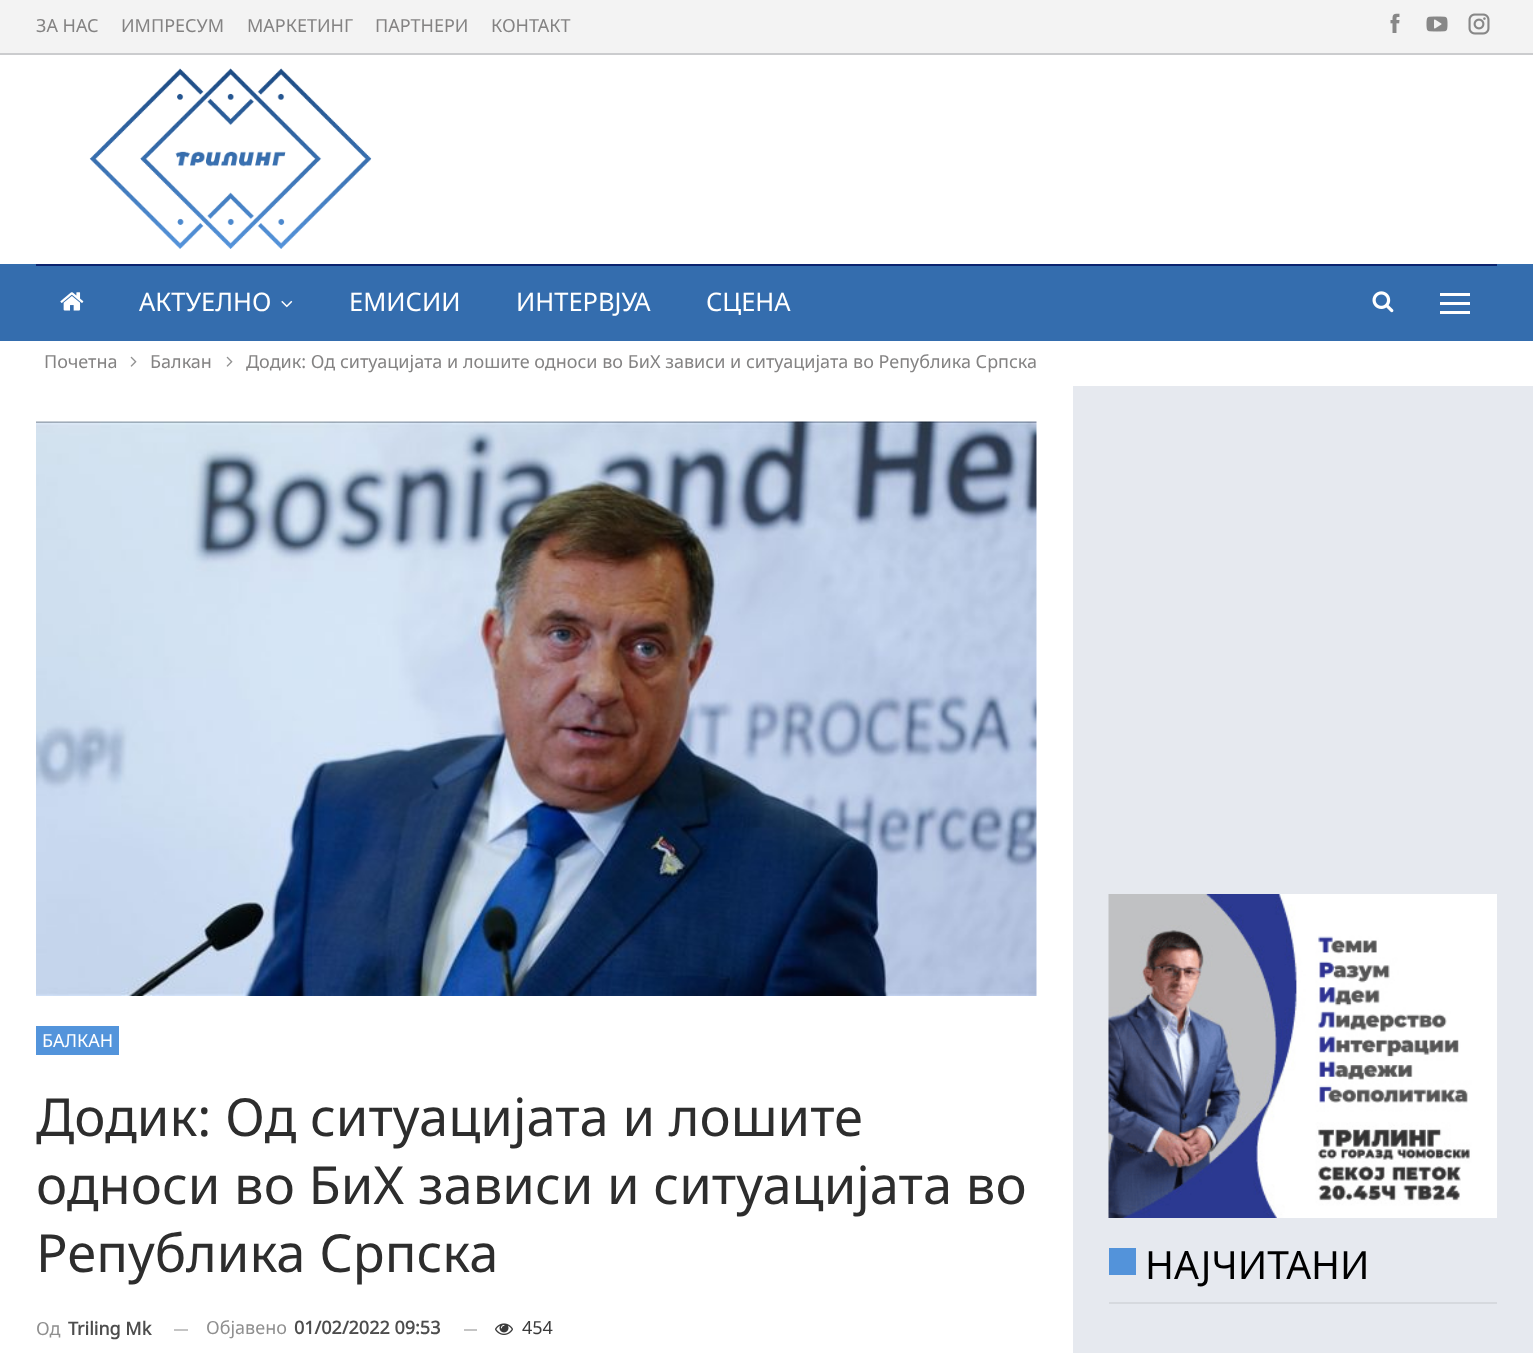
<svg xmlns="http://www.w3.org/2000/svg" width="1533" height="1353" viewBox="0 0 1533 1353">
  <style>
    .t1 { font: 18px Noto Sans; fill: #848383; }
    .t2 { font: 25.5px Noto Sans; fill: #fff; }
    .t3 { font: 18px Noto Sans; fill: #fff; }
    .t4 { font: 52.5px Noto Sans; fill: #2d2d2d; }
    .t5 { font: 18px Noto Sans; fill: #8f8f8f; }
    .t6 { font: bold 18px Noto Sans; fill: #4d4d4d; }
    .t7 { font: 18px Noto Sans; fill: #3a3a3a; }
    .t8 { font: 39px Noto Sans; fill: #000; }
  </style>
  <rect width="100%" height="100%" fill="#fff"/>
  <rect x="0" y="0" width="1533" height="53" fill="#f3f3f3"/>
  <rect x="0" y="53" width="1533" height="2" fill="#cbccce"/>
  <text x="36" y="32" class="t1">ЗА НАС</text>
  <text x="121" y="32" class="t1">ИМПРЕСУМ</text>
  <text x="247" y="32" class="t1">МАРКЕТИНГ</text>
  <text x="375" y="32" class="t1">ПАРТНЕРИ</text>
  <text x="491" y="32" class="t1">КОНТАКТ</text>
  <image x="1390" y="13" width="10" height="20" href="images/1.png"/>
  <image x="1426" y="16" width="22" height="16" href="images/2.png"/>
  <image x="1468" y="13" width="22" height="22" href="images/3.png"/>
  <image x="89" y="68" width="283" height="181" href="images/4.png"/>
  <rect x="0" y="264" width="1533" height="77" fill="#346dae"/>
  <rect x="36" y="264" width="1461" height="2" fill="#0b246f"/>
  <image x="60" y="292" width="24" height="19" href="images/5.png"/>
  <text x="139" y="311" class="t2">АКТУЕЛНО</text>
  <image x="281" y="300" width="12" height="8" href="images/6.png"/>
  <text x="349" y="311" class="t2">ЕМИСИИ</text>
  <text x="516" y="311" class="t2">ИНТЕРВЈУА</text>
  <text x="706" y="311" class="t2">СЦЕНА</text>
  <image x="1372" y="291" width="22" height="22" href="images/7.png"/>
  <rect x="1440" y="302" width="30" height="3" fill="#fff"/>
  <rect x="1440" y="293" width="30" height="3" fill="#fff"/>
  <rect x="1440" y="311" width="30" height="3" fill="#fff"/>
  <text x="44" y="368" class="t1">Почетна</text>
  <image x="130" y="356" width="7" height="11" href="images/8.png"/>
  <text x="150" y="368" class="t1">Балкан</text>
  <image x="226" y="356" width="7" height="11" href="images/8.png"/>
  <text x="246" y="368" class="t1">Додик: Од ситуацијата и лошите односи во БиХ зависи и ситуацијата во Република Српска</text>
  <image x="36" y="421" width="1001" height="575" href="images/9.png"/>
  <rect x="36" y="1026" width="83" height="29" fill="#5394db"/>
  <text x="42" y="1047" class="t3">БАЛКАН</text>
  <text x="36" y="1136" class="t4">Додик: Од ситуацијата и лошите</text>
  <text x="36" y="1204" class="t4">односи во БиХ зависи и ситуацијата во</text>
  <text x="36" y="1272" class="t4">Република Српска</text>
  <text x="36" y="1335" class="t5">Од</text>
  <text x="68" y="1335" class="t6">Triling Mk</text>
  <rect x="174" y="1329" width="14" height="2" fill="#c4c4c4"/>
  <text x="206" y="1334" class="t5">Објавено</text>
  <text x="294" y="1334" class="t6">01/02/2022 09:53</text>
  <rect x="464" y="1329" width="13" height="2" fill="#c4c4c4"/>
  <image x="495" y="1323" width="18" height="12" href="images/10.png"/>
  <text x="522" y="1334" class="t7">454</text>
  <rect x="1073" y="386" width="460" height="967" fill="#e6e9ef"/>
  <image x="1108" y="894" width="389" height="324" href="images/11.png"/>
  <rect x="1109" y="1248" width="27" height="27" fill="#5393da"/>
  <text x="1145" y="1279" class="t8">НАЈЧИТАНИ</text>
  <rect x="1109" y="1302" width="388" height="2" fill="#d6d9de"/>
</svg>
